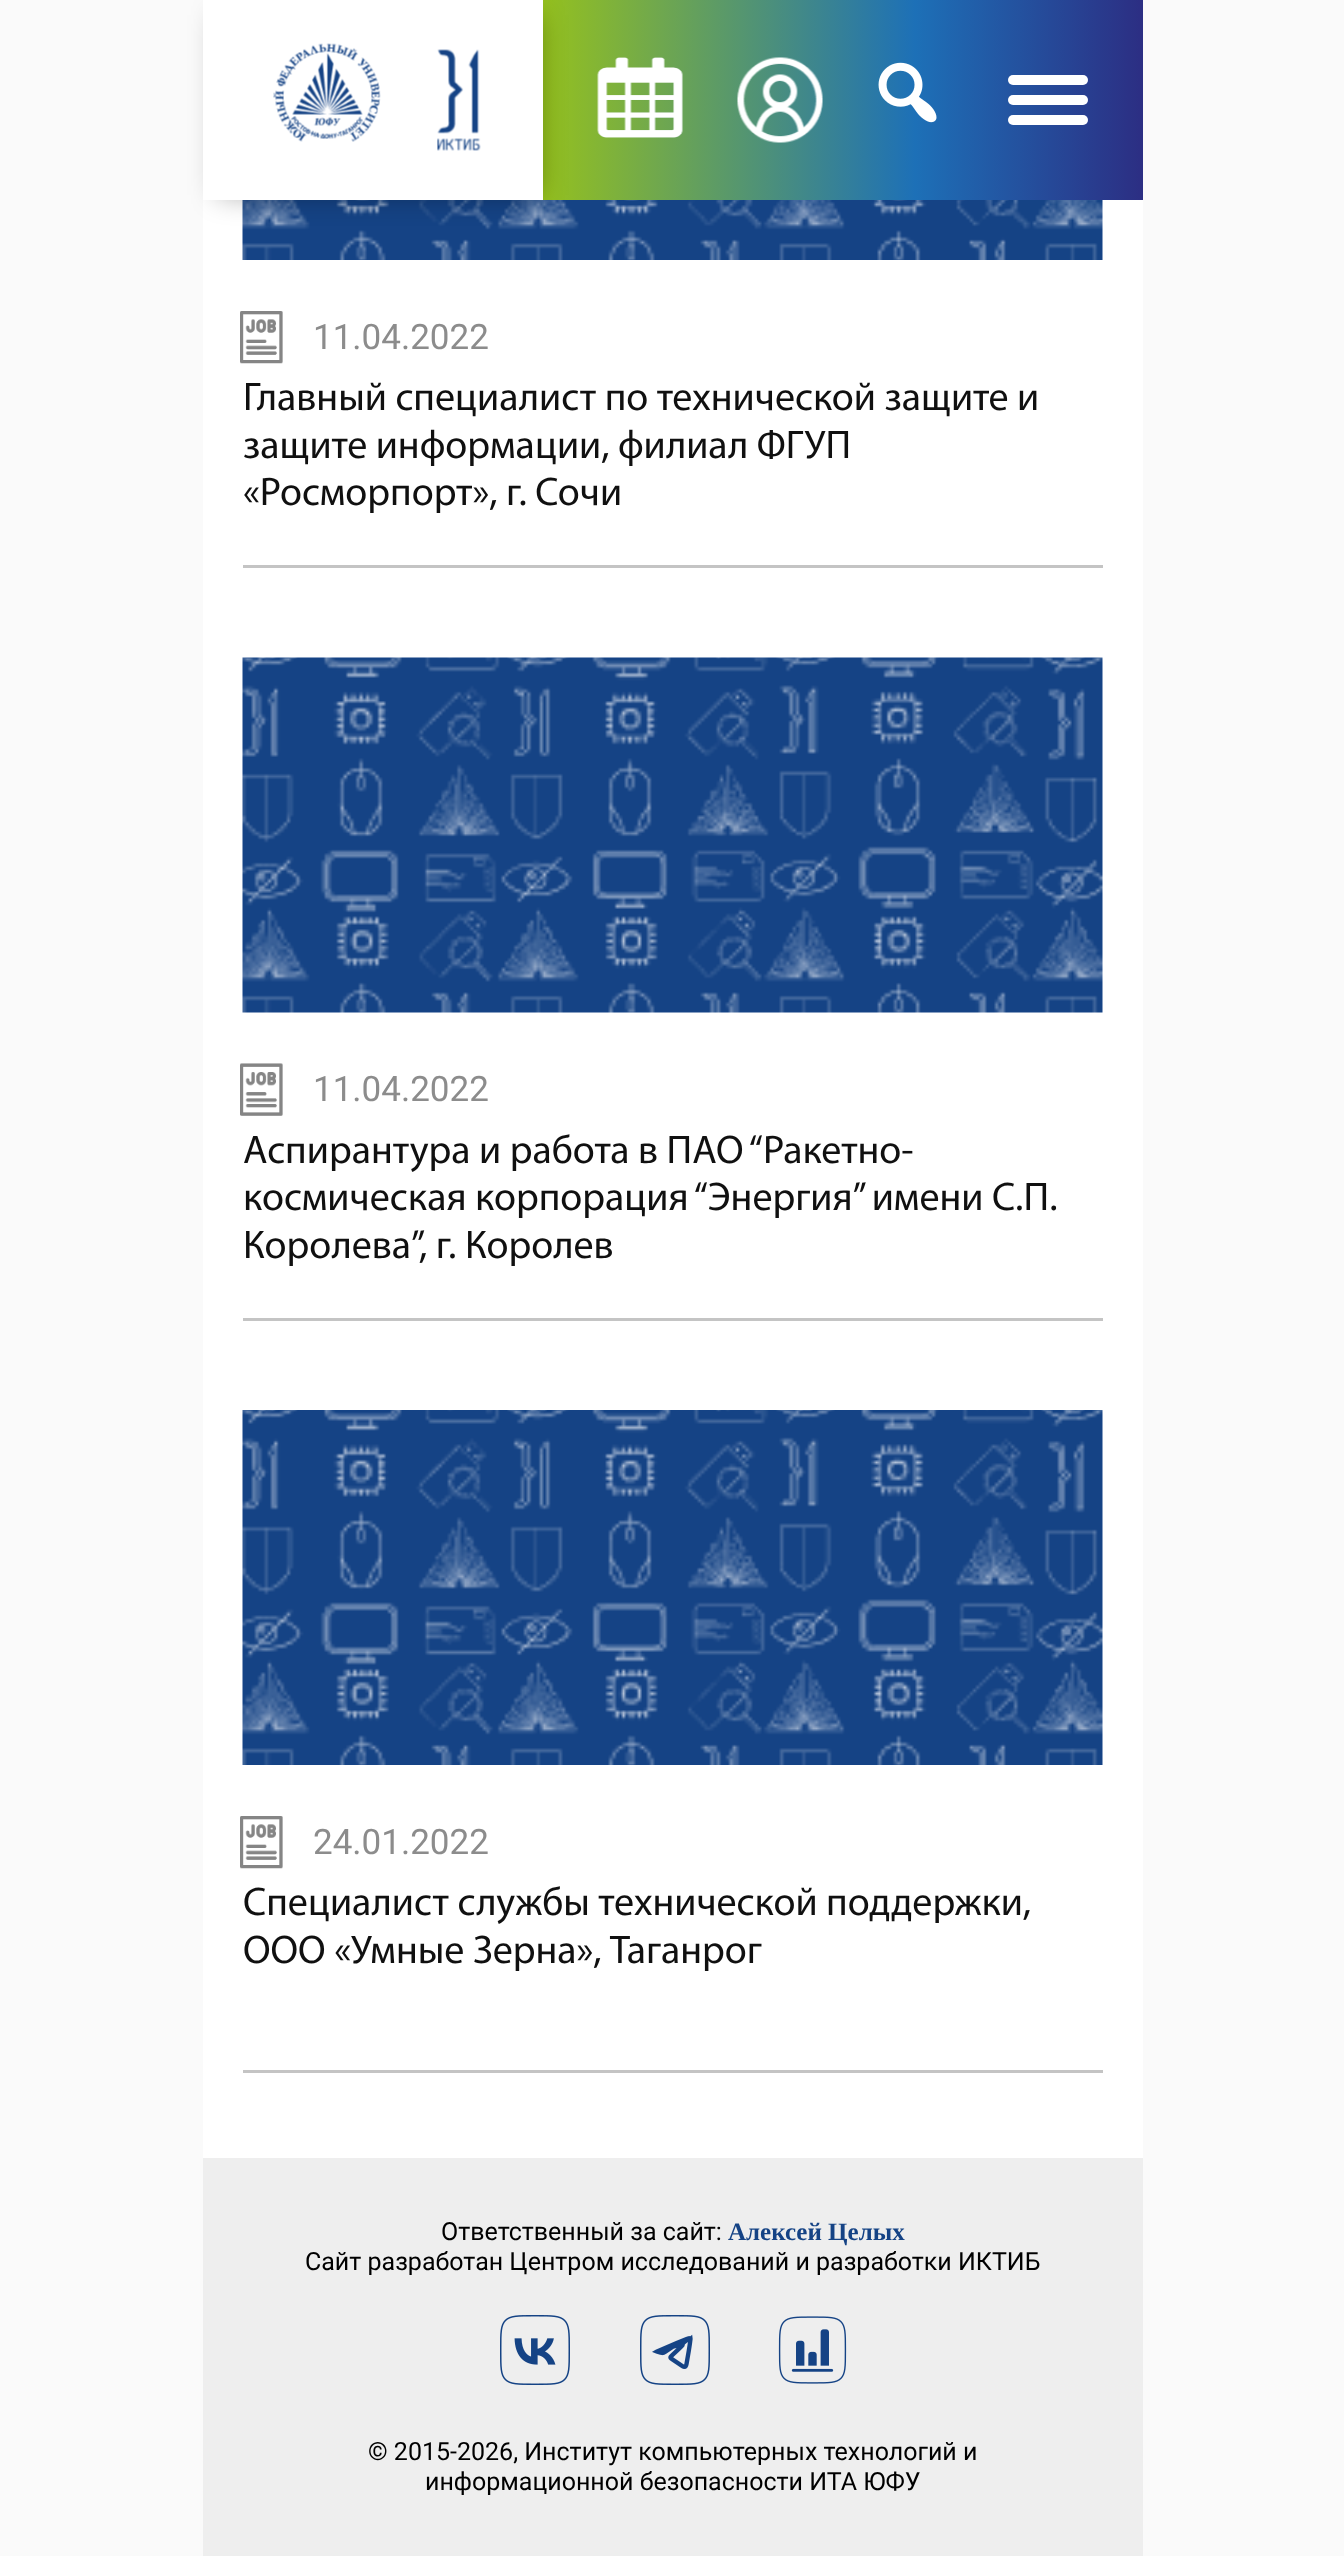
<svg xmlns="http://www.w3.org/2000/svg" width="1344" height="2556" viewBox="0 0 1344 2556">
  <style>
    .t1 { font: 35px Roboto; fill: #8c8c8c; }
    .t2 { font: 40px Myriad; fill: #101010; }
    .t3 { font: 25px 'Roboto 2'; fill: #000; }
    .t4 { font: bold 25px Liberation Serif; fill: #154385; }
  </style>
  <defs>
    <linearGradient id="g1" gradientUnits="userSpaceOnUse" x1="543" y1="100" x2="1143" y2="100"><stop offset="0" stop-color="#95c11e"/><stop offset="0.62" stop-color="#1d70b7"/><stop offset="1" stop-color="#2c2e83"/></linearGradient>
  </defs>
  <rect width="100%" height="100%" fill="#fafafa"/>
  <rect x="543" y="0" width="600" height="200" fill="url(#g1)"/>
  <rect x="203" y="200" width="940" height="1958" fill="#fff"/>
  <image x="242" y="200" width="861" height="60" href="images/6.png"/>
  <rect x="218" y="15" width="320" height="180" fill="#0000005e" filter="blur(14px)"/>
  <rect x="203" y="0" width="340" height="200" fill="#fff"/>
  <image x="273" y="43" width="108" height="99" href="images/1.png"/>
  <image x="437" y="49" width="44" height="102" href="images/2.png"/>
  <image x="597" y="57" width="86" height="81" href="images/3.png"/>
  <image x="737" y="57" width="86" height="86" href="images/4.png"/>
  <image x="878" y="62" width="59" height="61" href="images/5.png"/>
  <rect x="1008" y="75" width="80" height="10" rx="5" fill="#fff"/>
  <rect x="1008" y="95" width="80" height="10" rx="5" fill="#fff"/>
  <rect x="1008" y="115" width="80" height="10" rx="5" fill="#fff"/>
  <rect x="243" y="565" width="860" height="3" fill="#c4c4c4"/>
  <image x="240" y="311" width="43" height="53" href="images/7.png"/>
  <text x="313" y="349" class="t1">11.04.2022</text>
  <text x="243" y="410" class="t2">Главный специалист по технической защите и</text>
  <text x="243" y="458" class="t2">защите информации, филиал ФГУП</text>
  <text x="243" y="505" class="t2">«Росморпорт», г. Сочи</text>
  <rect x="243" y="1318" width="860" height="3" fill="#c4c4c4"/>
  <image x="242" y="657" width="861" height="356" href="images/8.png"/>
  <image x="240" y="1063" width="43" height="53" href="images/9.png"/>
  <text x="313" y="1101" class="t1">11.04.2022</text>
  <text x="243" y="1163" class="t2">Аспирантура и работа в ПАО “Ракетно-</text>
  <text x="243" y="1210" class="t2">космическая корпорация “Энергия” имени С.П.</text>
  <text x="243" y="1258" class="t2">Королева”, г. Королев</text>
  <rect x="243" y="2070" width="860" height="3" fill="#c4c4c4"/>
  <image x="242" y="1410" width="861" height="355" href="images/10.png"/>
  <image x="240" y="1816" width="43" height="53" href="images/7.png"/>
  <text x="313" y="1854" class="t1">24.01.2022</text>
  <text x="243" y="1915" class="t2">Специалист службы технической поддержки,</text>
  <text x="243" y="1963" class="t2">ООО «Умные Зерна», Таганрог</text>
  <rect x="203" y="2158" width="940" height="398" fill="#eee"/>
  <text x="441" y="2240" class="t3">Ответственный за сайт:</text>
  <text x="728" y="2240" class="t4">Алексей Целых</text>
  <text x="305" y="2270" class="t3">Сайт разработан Центром исследований и разработки ИКТИБ</text>
  <image x="500" y="2315" width="70" height="70" href="images/11.png"/>
  <image x="640" y="2315" width="70" height="70" href="images/12.png"/>
  <image x="778" y="2316" width="69" height="68" href="images/13.png"/>
  <text x="368" y="2460" class="t3">© 2015-2026, Институт компьютерных технологий и</text>
  <text x="425" y="2490" class="t3">информационной безопасности ИТА ЮФУ</text>
</svg>
